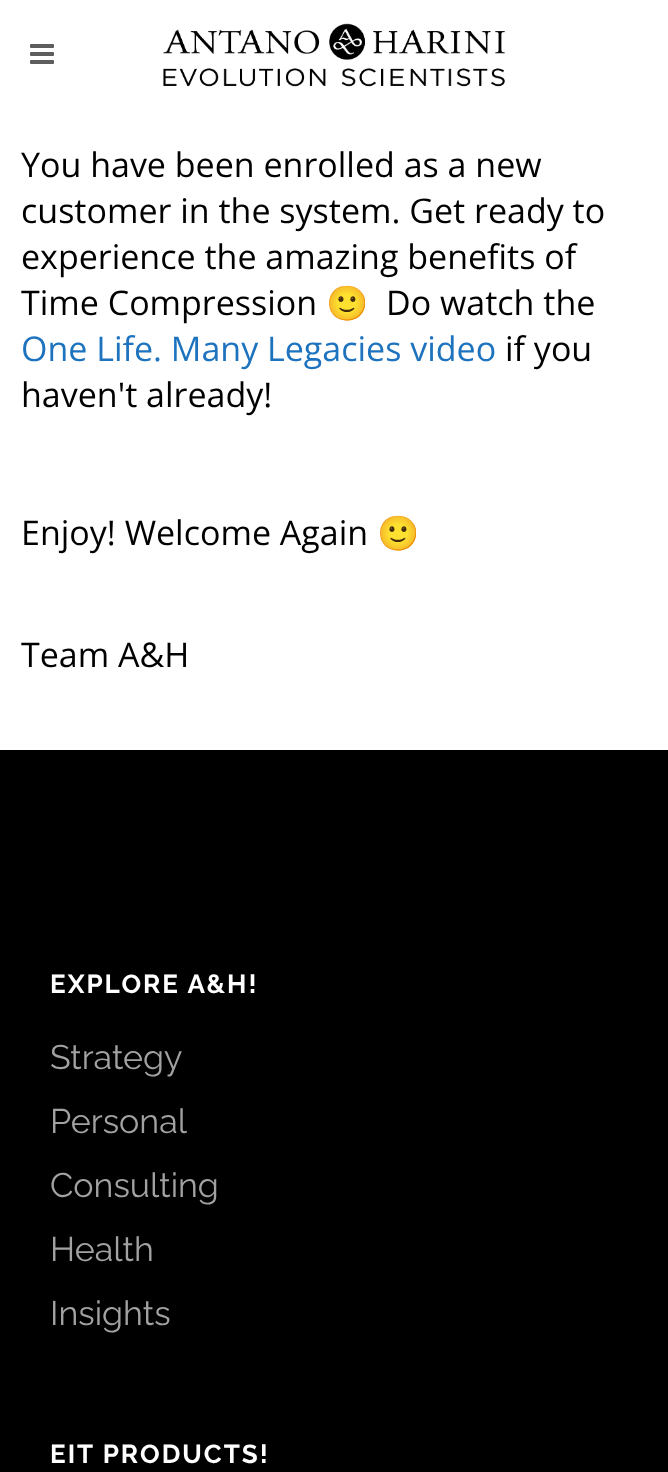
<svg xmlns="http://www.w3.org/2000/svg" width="668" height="1472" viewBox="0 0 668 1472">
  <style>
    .t1 { font: 34px Open Sans; fill: #000; }
    .t2 { font: 34px Noto Color Emoji; fill: #000; }
    .t3 { font: 34px Open Sans; fill: #1e73be; }
    .t4 { font: bold 26px Raleway; letter-spacing: 2px; fill: #fff; }
    .t5 { font: 34px Raleway; fill: #a2a2a2; }
  </style>
  <rect width="100%" height="100%" fill="#fff"/>
  <image x="30" y="44" width="24" height="20" href="images/1.png"/>
  <image x="163" y="23" width="342" height="64" href="images/2.png"/>
  <text x="21" y="177" class="t1">You have been enrolled as a new</text>
  <text x="21" y="223" class="t1">customer in the system. Get ready to</text>
  <text x="21" y="269" class="t1">experience the amazing benefits of</text>
  <text x="21" y="315" class="t1">Time Compression</text>
  <text x="326" y="315" class="t2">🙂</text>
  <text x="386" y="315" class="t1">Do watch the</text>
  <text x="21" y="361" class="t3">One Life. Many Legacies video</text>
  <text x="505" y="361" class="t1">if you</text>
  <text x="21" y="407" class="t1">haven't already!</text>
  <text x="21" y="545" class="t1">Enjoy! Welcome Again</text>
  <text x="377" y="545" class="t2">🙂</text>
  <text x="21" y="667" class="t1">Team A&amp;H</text>
  <rect x="0" y="750" width="668" height="722" fill="#000"/>
  <text x="50" y="993" class="t4">EXPLORE A&amp;H!</text>
  <text x="50" y="1069" class="t5">Strategy</text>
  <text x="50" y="1133" class="t5">Personal</text>
  <text x="50" y="1197" class="t5">Consulting</text>
  <text x="50" y="1261" class="t5">Health</text>
  <text x="50" y="1325" class="t5">Insights</text>
  <text x="50" y="1463" class="t4">EIT PRODUCTS!</text>
</svg>
